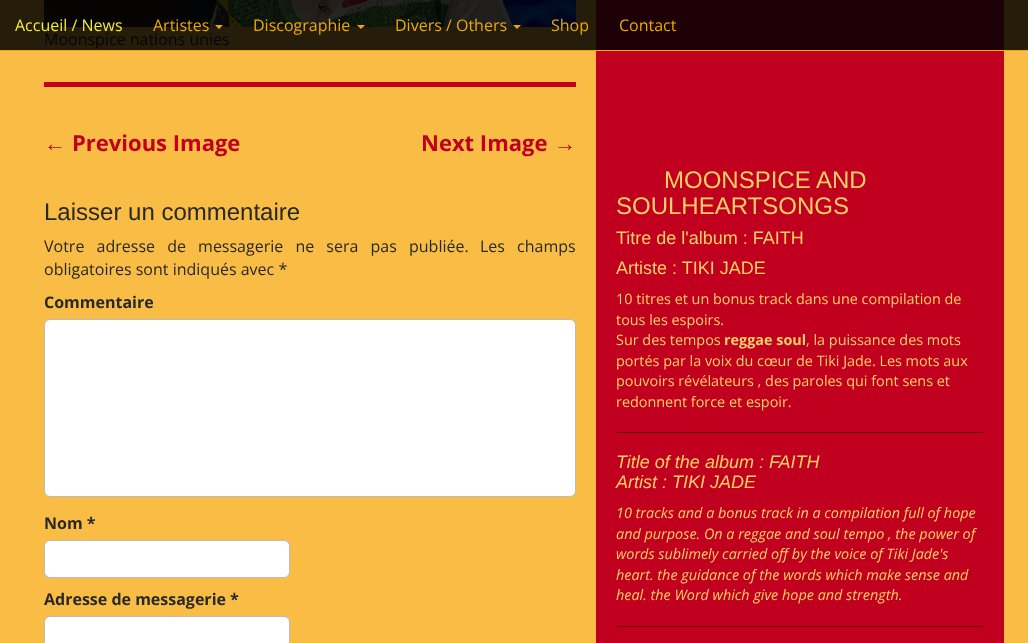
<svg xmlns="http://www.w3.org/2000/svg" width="1028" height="643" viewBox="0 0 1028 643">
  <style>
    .t1 { font: 16px Open Sans; fill: #f6e935; }
    .t2 { font: 16px Open Sans; fill: #eea800; }
    .t3 { font: 16px Open Sans; fill: #060606; }
    .t4 { font: bold 22px Liberation Sans; fill: #c1001f; }
    .t5 { font: bold 22px Open Sans; fill: #c1001f; }
    .t6 { font: 24px Liberation Sans; fill: #282828; }
    .t7 { font: 16px Open Sans; fill: #282828; }
    .t8 { font: bold 16px Open Sans; fill: #282828; }
    .t9 { font: 24px Liberation Sans; fill: #facf67; }
    .t10 { font: 18px Liberation Sans; fill: #facf67; }
    .t11 { font: 14.4px Open Sans; fill: #facf67; }
    .t12 { font: bold 14.4px Open Sans; fill: #facf67; }
    .t13 { font: italic 18px Liberation Sans; fill: #facf67; }
    .t14 { font: italic 14.4px Open Sans; fill: #facf67; }
  </style>
  <rect width="100%" height="100%" fill="#f9bd45"/>
  <rect x="0" y="0" width="1028" height="50" fill="#251c0a"/>
  <rect x="0" y="50" width="1028" height="1" fill="#eea800"/>
  <image x="44" y="0" width="532" height="27" href="images/1.png"/>
  <text x="15" y="31" class="t1">Accueil / News</text>
  <text x="153" y="31" class="t2">Artistes</text>
  <path d="M215 25H223L219 29Z" fill="#eea800"/>
  <text x="253" y="31" class="t2">Discographie</text>
  <path d="M357 25H365L361 29Z" fill="#eea800"/>
  <text x="395" y="31" class="t2">Divers / Others</text>
  <path d="M513 25H521L517 29Z" fill="#eea800"/>
  <text x="551" y="31" class="t2">Shop</text>
  <rect x="596" y="0" width="408" height="50" fill="#1d0005"/>
  <text x="619" y="31" class="t2">Contact</text>
  <rect x="44" y="82" width="532" height="5" fill="#c1001f"/>
  <text x="44" y="45" class="t3">Moonspice nations unies</text>
  <text x="44" y="151" class="t4">←</text>
  <text x="72" y="151" class="t5">Previous Image</text>
  <text x="421" y="151" class="t5">Next Image</text>
  <text x="554" y="151" class="t4">→</text>
  <text x="44" y="220" class="t6">Laisser un commentaire</text>
  <text x="44" y="252" word-spacing="8" class="t7">Votre adresse de messagerie ne sera pas publiée.</text>
  <text x="480" y="252" word-spacing="8" class="t7">Les champs</text>
  <text x="44" y="275" class="t7">obligatoires sont indiqués avec *</text>
  <text x="44" y="308" class="t8">Commentaire</text>
  <rect x="44.5" y="319.5" width="531" height="177" rx="5.5" fill="#fff" stroke="#bbb"/>
  <text x="44" y="529" class="t8">Nom *</text>
  <rect x="44.5" y="540.5" width="245" height="37" rx="5.5" fill="#fff" stroke="#bbb"/>
  <text x="44" y="605" class="t8">Adresse de messagerie *</text>
  <rect x="44.5" y="616.5" width="245" height="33" rx="5.5" fill="#fff" stroke="#bbb"/>
  <rect x="596" y="51" width="408" height="592" fill="#c1001f"/>
  <text x="664" y="188" class="t9">MOONSPICE AND</text>
  <text x="616" y="214" class="t9">SOULHEARTSONGS</text>
  <text x="616" y="244" class="t10">Titre de l'album : FAITH</text>
  <text x="616" y="274" class="t10">Artiste : TIKI JADE</text>
  <text x="616" y="304" class="t11">10 titres et un bonus track dans une compilation de</text>
  <text x="616" y="325" class="t11">tous les espoirs.</text>
  <text x="616" y="345" class="t11">Sur des tempos</text>
  <text x="724" y="345" class="t12">reggae soul</text>
  <text x="806" y="345" class="t11">, la puissance des mots</text>
  <text x="616" y="366" class="t11">portés par la voix du cœur de Tiki Jade. Les mots aux</text>
  <text x="616" y="386" class="t11">pouvoirs révélateurs , des paroles qui font sens et</text>
  <text x="616" y="407" class="t11">redonnent force et espoir.</text>
  <rect x="616" y="432" width="368" height="1" fill="#710214"/>
  <text x="616" y="468" class="t13">Title of the album : FAITH</text>
  <text x="616" y="488" class="t13">Artist : TIKI JADE</text>
  <text x="616" y="518" class="t14">10 tracks and a bonus track in a compilation full of hope</text>
  <text x="616" y="539" class="t14">and purpose. On a reggae and soul tempo , the power of</text>
  <text x="616" y="559" class="t14">words sublimely carried off by the voice of Tiki Jade's</text>
  <text x="616" y="580" class="t14">heart. the guidance of the words which make sense and</text>
  <text x="616" y="600" class="t14">heal. the Word which give hope and strength.</text>
  <rect x="616" y="626" width="368" height="1" fill="#710214"/>
</svg>
